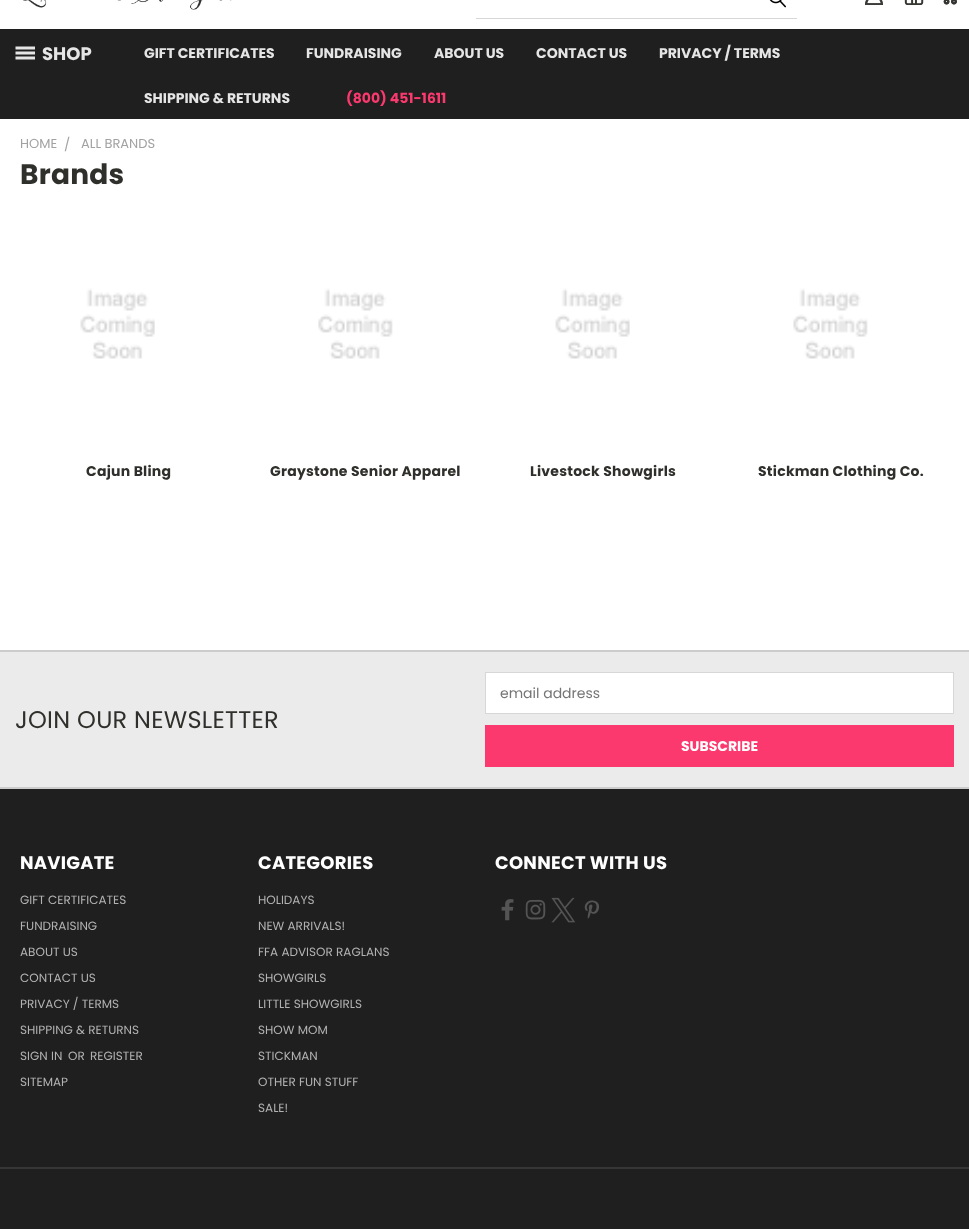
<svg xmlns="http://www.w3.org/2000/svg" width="969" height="1229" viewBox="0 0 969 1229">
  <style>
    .t1 { font: bold 18px Poppins; fill: #e5e5e5; }
    .t2 { font: bold 14px Poppins; fill: #e5e5e5; }
    .t3 { font: bold 14px Poppins; fill: #fc396e; }
    .t4 { font: 13px Poppins; fill: #a2a2a2; }
    .t5 { font: bold 28px Poppins; letter-spacing: 0.25px; fill: #2f2f2b; }
    .t6 { font: bold 14px Poppins; letter-spacing: 0.25px; fill: #2f2f2b; }
    .t7 { font: 24px Poppins; letter-spacing: 0.25px; fill: #2f2f2b; }
    .t8 { font: 14px Poppins; fill: #757575; }
    .t9 { font: bold 14px Poppins; fill: #fff; }
    .t10 { font: bold 18px Poppins; letter-spacing: 0.25px; fill: #fff; }
    .t11 { font: 12px Poppins; fill: #b2b2b2; }
  </style>
  <rect width="100%" height="100%" fill="#fff"/>
  <image x="23" y="0" width="209" height="10" href="images/1.png"/>
  <image x="769" y="0" width="17" height="8" href="images/2.png"/>
  <rect x="476" y="18" width="321" height="1" fill="#d7d7d7"/>
  <image x="865" y="0" width="18" height="5" href="images/3.png"/>
  <image x="904" y="0" width="20" height="5" href="images/4.png"/>
  <image x="943" y="0" width="14" height="5" href="images/5.png"/>
  <rect x="0" y="29" width="969" height="90" fill="#1f1f1f"/>
  <image x="15" y="46" width="20" height="14" href="images/6.png"/>
  <text x="42" y="60" class="t1">SHOP</text>
  <text x="144" y="58" class="t2">GIFT CERTIFICATES</text>
  <text x="306" y="58" class="t2">FUNDRAISING</text>
  <text x="434" y="58" class="t2">ABOUT US</text>
  <text x="536" y="58" class="t2">CONTACT US</text>
  <text x="659" y="58" class="t2">PRIVACY / TERMS</text>
  <text x="144" y="103" class="t2">SHIPPING &amp; RETURNS</text>
  <text x="346" y="103" class="t3">(800) 451-1611</text>
  <text x="20" y="148" class="t4">HOME</text>
  <text x="64" y="149" class="t4">/</text>
  <text x="81" y="148" class="t4">ALL BRANDS</text>
  <text x="20" y="184" class="t5">Brands</text>
  <image x="80" y="288" width="75" height="71" href="images/7.png"/>
  <text x="86" y="476" class="t6">Cajun Bling</text>
  <image x="318" y="288" width="75" height="71" href="images/8.png"/>
  <text x="270" y="476" class="t6">Graystone Senior Apparel</text>
  <image x="555" y="288" width="75" height="71" href="images/7.png"/>
  <text x="530" y="476" class="t6">Livestock Showgirls</text>
  <image x="793" y="288" width="75" height="71" href="images/8.png"/>
  <text x="758" y="476" class="t6">Stickman Clothing Co.</text>
  <rect x="0" y="652" width="969" height="135" fill="#ebebeb"/>
  <rect x="0" y="650" width="969" height="2" fill="#cdcccc"/>
  <text x="15" y="728" class="t7">JOIN OUR NEWSLETTER</text>
  <rect x="485.5" y="672.5" width="468" height="41" fill="#fff" stroke="#d7d7d7"/>
  <text x="500" y="698" class="t8">email address</text>
  <rect x="485" y="725" width="469" height="42" fill="#fc396e"/>
  <text x="681" y="751" class="t9">SUBSCRIBE</text>
  <rect x="0" y="789" width="969" height="440" fill="#1f1f1f"/>
  <rect x="0" y="787" width="969" height="2" fill="#cdcccc"/>
  <text x="20" y="869" class="t10">NAVIGATE</text>
  <text x="20" y="904" class="t11">GIFT CERTIFICATES</text>
  <text x="20" y="930" class="t11">FUNDRAISING</text>
  <text x="20" y="956" class="t11">ABOUT US</text>
  <text x="20" y="982" class="t11">CONTACT US</text>
  <text x="20" y="1008" class="t11">PRIVACY / TERMS</text>
  <text x="20" y="1034" class="t11">SHIPPING &amp; RETURNS</text>
  <text x="20" y="1060" class="t11">SIGN IN</text>
  <text x="68" y="1060" class="t11">OR</text>
  <text x="90" y="1060" class="t11">REGISTER</text>
  <text x="20" y="1086" class="t11">SITEMAP</text>
  <text x="258" y="869" class="t10">CATEGORIES</text>
  <text x="258" y="904" class="t11">HOLIDAYS</text>
  <text x="258" y="930" class="t11">NEW ARRIVALS!</text>
  <text x="258" y="956" class="t11">FFA ADVISOR RAGLANS</text>
  <text x="258" y="982" class="t11">SHOWGIRLS</text>
  <text x="258" y="1008" class="t11">LITTLE SHOWGIRLS</text>
  <text x="258" y="1034" class="t11">SHOW MOM</text>
  <text x="258" y="1060" class="t11">STICKMAN</text>
  <text x="258" y="1086" class="t11">OTHER FUN STUFF</text>
  <text x="258" y="1112" class="t11">SALE!</text>
  <text x="495" y="869" class="t10">CONNECT WITH US</text>
  <image x="501" y="899" width="13" height="22" href="images/9.png"/>
  <image x="525" y="899" width="21" height="21" href="images/10.png"/>
  <image x="551" y="897" width="25" height="26" href="images/11.png"/>
  <image x="584" y="900" width="15" height="19" href="images/12.png"/>
  <rect x="0" y="1167" width="969" height="2" fill="#363636"/>
</svg>
